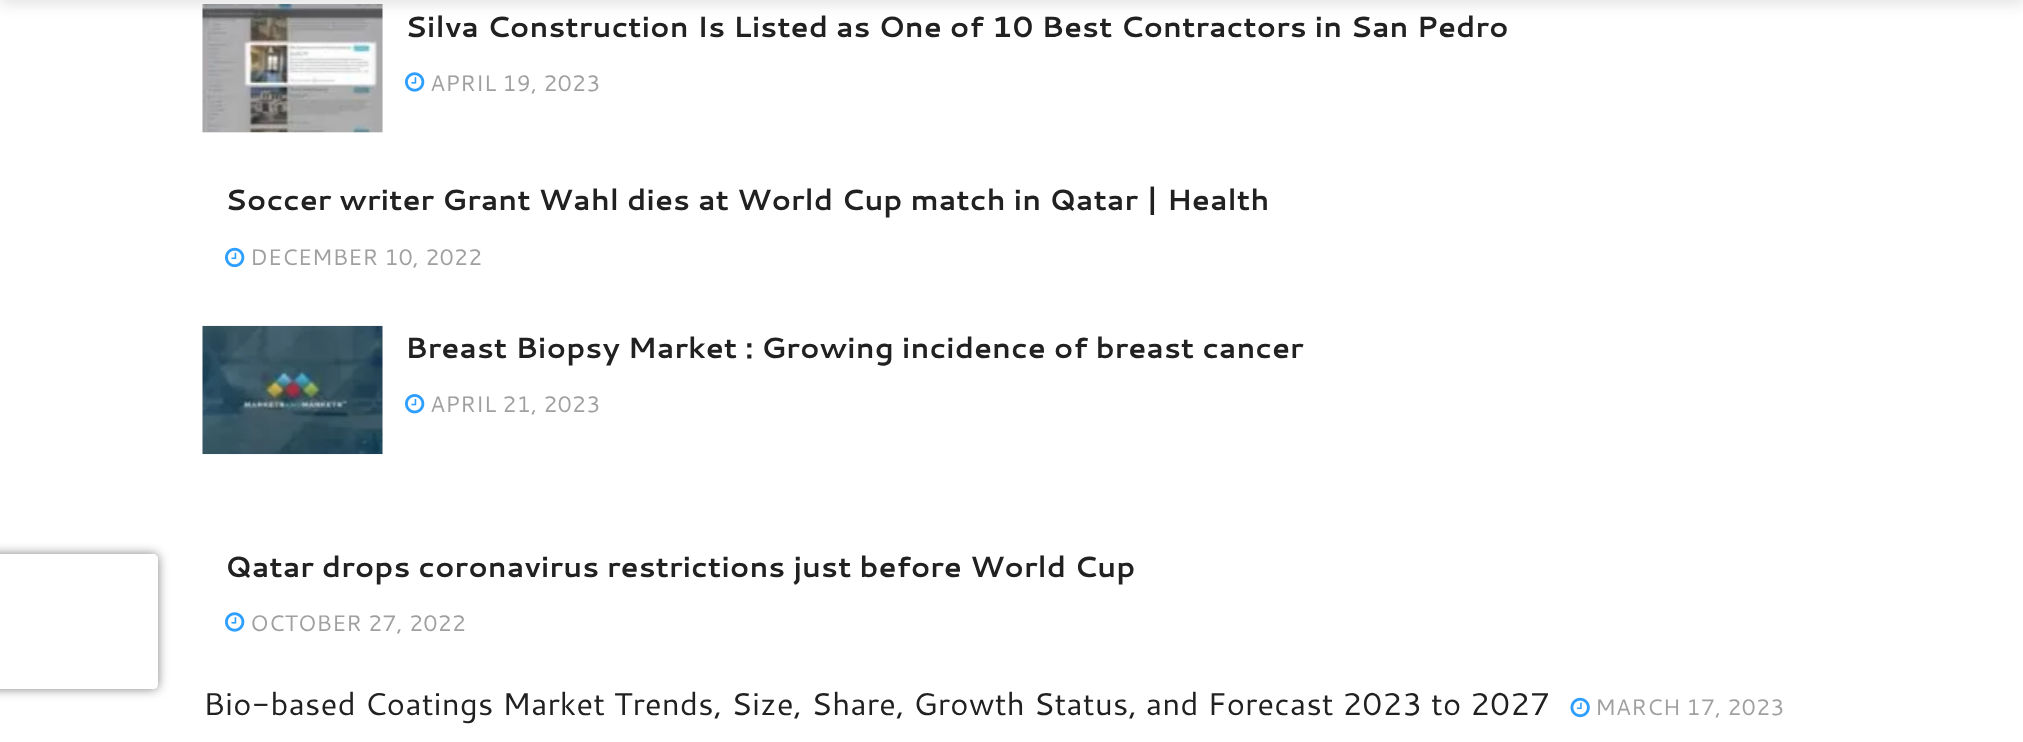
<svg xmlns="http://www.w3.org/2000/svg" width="2023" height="742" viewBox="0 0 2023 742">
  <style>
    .t1 { font: bold 29.25px Cantarell; fill: #212121; }
    .t2 { font: 22.5px Cantarell; fill: #a0a0a0; }
    .t3 { font: 31.5px Cantarell; fill: #212121; }
  </style>
  <defs>
    <clipPath id="clip1"><path d="M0 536H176V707H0ZM-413 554H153C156 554 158 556 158 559V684C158 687 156 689 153 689H-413C-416 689-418 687-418 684V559C-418 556-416 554-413 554Z" clip-rule="evenodd"/></clipPath>
  </defs>
  <rect width="100%" height="100%" fill="#fff"/>
  <rect x="203" y="5" width="180" height="128" fill="#f7f7f7"/>
  <image x="202" y="4" width="181" height="128" href="images/1.png"/>
  <image x="202" y="4" width="181" height="129" href="images/2.png"/>
  <rect x="0" y="-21" width="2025" height="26" fill="#0000001a" filter="blur(7px)"/>
  <g clip-path="url(#clip1)">
    <rect x="-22" y="554" width="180" height="135" rx="5" fill="#808080" filter="blur(5.5px)"/>
  </g>
  <text x="405" y="37" class="t1">Silva Construction Is Listed as One of 10 Best Contractors in San Pedro</text>
  <image x="405" y="72" width="20" height="20" href="images/3.png"/>
  <text x="430" y="91" class="t2">APRIL 19, 2023</text>
  <text x="225" y="210" class="t1">Soccer writer Grant Wahl dies at World Cup match in Qatar | Health</text>
  <image x="225" y="247" width="20" height="21" href="images/4.png"/>
  <text x="250" y="265" class="t2">DECEMBER 10, 2022</text>
  <rect x="203" y="326" width="180" height="129" fill="#f7f7f7"/>
  <image x="202" y="326" width="1" height="128" href="images/6.png"/>
  <image x="202" y="325" width="181" height="129" href="images/5.png"/>
  <text x="405" y="358" class="t1">Breast Biopsy Market : Growing incidence of breast cancer</text>
  <image x="405" y="394" width="20" height="20" href="images/7.png"/>
  <text x="430" y="412" class="t2">APRIL 21, 2023</text>
  <text x="225" y="577" class="t1">Qatar drops coronavirus restrictions just before World Cup</text>
  <image x="225" y="612" width="20" height="20" href="images/3.png"/>
  <text x="250" y="631" class="t2">OCTOBER 27, 2022</text>
  <text x="203" y="715" class="t3">Bio-based Coatings Market Trends, Size, Share, Growth Status, and Forecast 2023 to 2027</text>
  <image x="1570" y="697" width="20" height="21" href="images/8.png"/>
  <text x="1595" y="715" class="t2">MARCH 17, 2023</text>
</svg>
